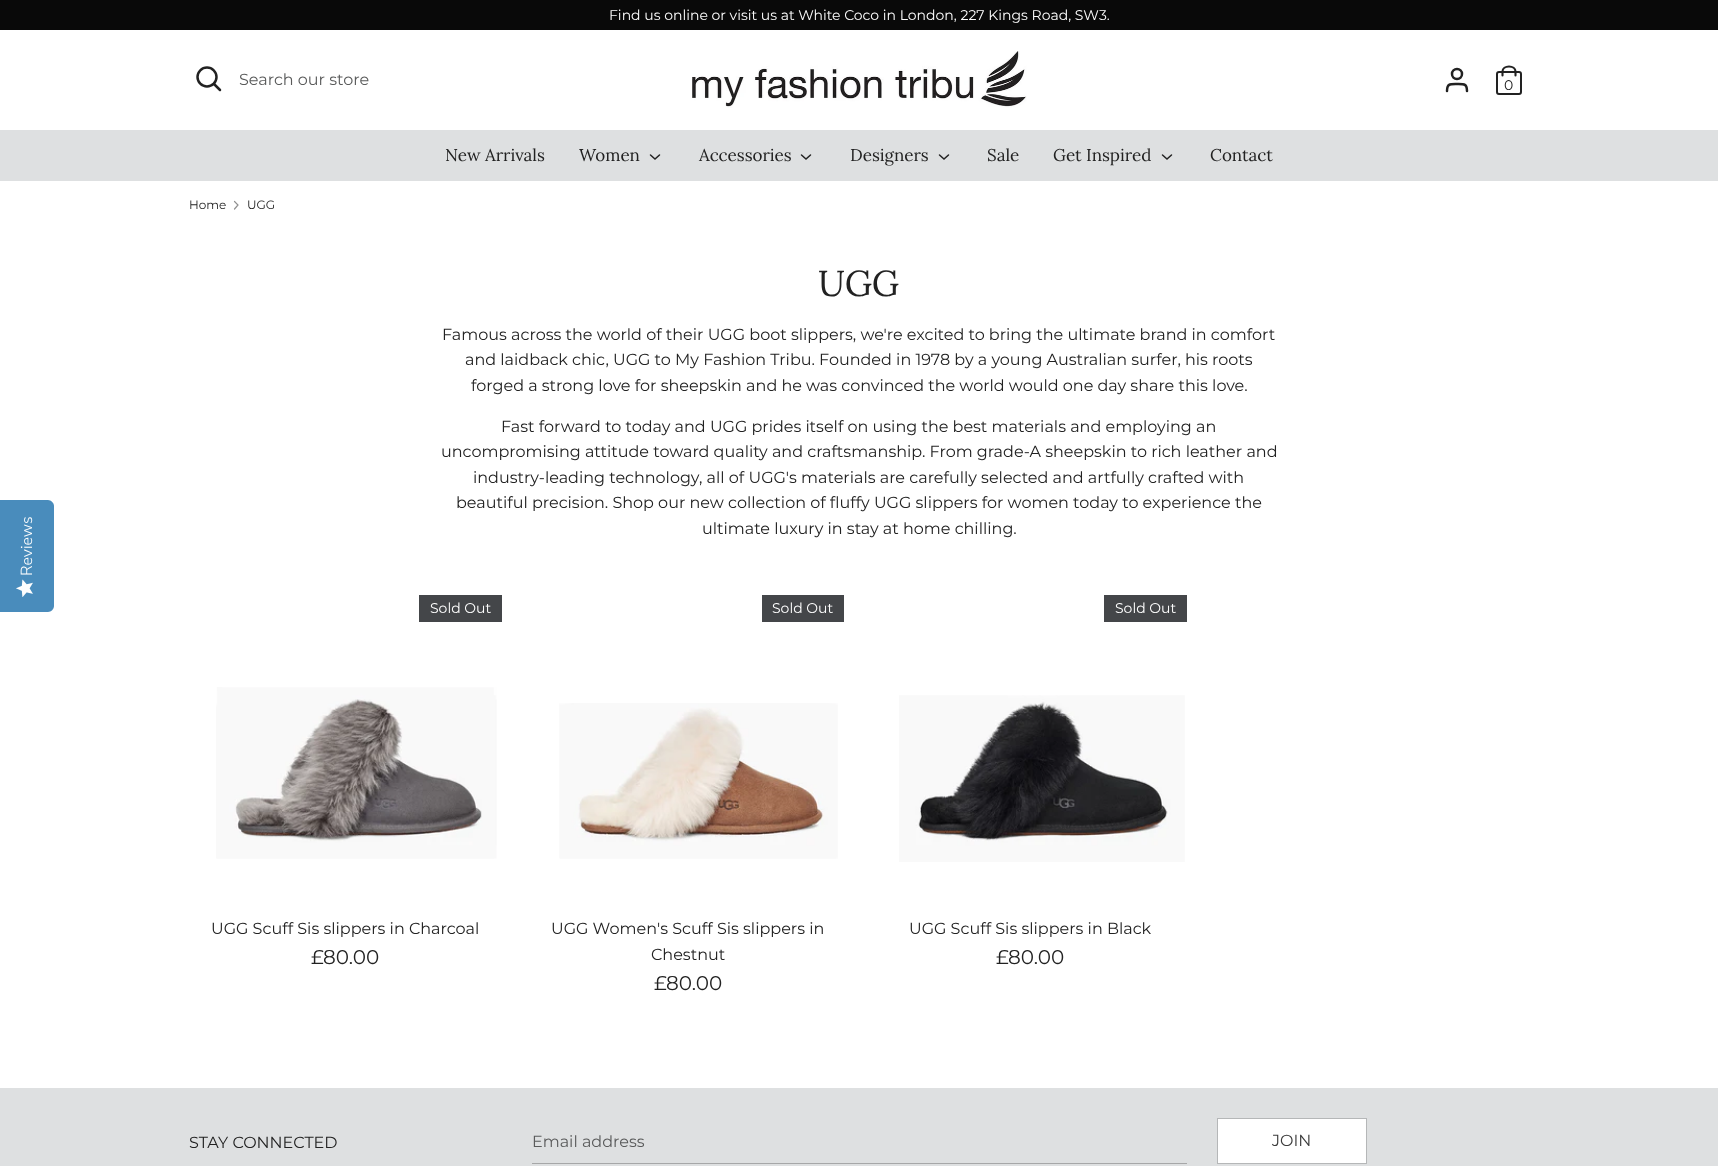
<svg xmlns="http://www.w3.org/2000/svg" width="1718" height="1166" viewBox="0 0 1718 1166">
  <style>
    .t1 { font: 14px Montserrat; fill: #fff; }
    .t2 { font: 16px Montserrat; fill: #5a5b5b; }
    .t3 { font: 14px Montserrat; fill: #222; }
    .t4 { font: 17px Lora; fill: #222; }
    .t5 { font: 12px Montserrat; fill: #222; }
    .t6 { font: 300 16px Nunito Sans; fill: #fff; }
    .t7 { font: 36px Lora; fill: #222; }
    .t8 { font: 16px Montserrat; fill: #222; }
    .t9 { font: 20px Montserrat; fill: #222; }
    .t10 { font: 16px Montserrat; fill: #3b3b3b; }
  </style>
  <rect width="100%" height="100%" fill="#fff"/>
  <rect x="0" y="0" width="1718" height="30" fill="#090909"/>
  <text x="609" y="20" class="t1">Find us online or visit us at White Coco in London, 227 Kings Road, SW3.</text>
  <circle cx="207" cy="77" r="9.5" fill="none" stroke="#222" stroke-width="2.5"/>
  <path d="M220 90L214 84" fill="none" stroke="#222" stroke-width="2.5" stroke-linecap="round"/>
  <text x="239" y="85" class="t2">Search our store</text>
  <image x="692" y="51" width="335" height="57" href="images/1.png"/>
  <path d="M1467 91C1467 83.5 1464 84 1457 84C1450 84 1447 83.5 1447 91" fill="none" stroke="#222" stroke-width="2.5" stroke-linecap="round"/>
  <circle cx="1457" cy="74" r="5" fill="none" stroke="#222" stroke-width="2.5"/>
  <rect x="1497" y="72" width="24" height="22" rx="2" fill="none" stroke="#222" stroke-width="2"/>
  <path d="M1502.5 75.5V71.5C1502.5 68.5 1505.5 66.5 1509 66.5C1512.5 66.5 1515.5 68.5 1515.5 71.5V75.5" fill="none" stroke="#222" stroke-width="2.1" stroke-linecap="round"/>
  <text x="1504" y="90" class="t3">0</text>
  <rect x="0" y="130" width="1718" height="51" fill="#dee0e1"/>
  <text x="445" y="161" class="t4">New Arrivals</text>
  <text x="579" y="161" class="t4">Women</text>
  <path d="M650.5 155L655 159L659.5 155" fill="none" stroke="#222" stroke-width="1.5" stroke-linecap="round"/>
  <text x="699" y="161" class="t4">Accessories</text>
  <path d="M801.5 155L806 159L810.5 155" fill="none" stroke="#222" stroke-width="1.5" stroke-linecap="round"/>
  <text x="850" y="161" class="t4">Designers</text>
  <path d="M939.5 155L944 159L948.5 155" fill="none" stroke="#222" stroke-width="1.5" stroke-linecap="round"/>
  <text x="987" y="161" class="t4">Sale</text>
  <text x="1053" y="161" class="t4">Get Inspired</text>
  <path d="M1162.5 155L1167 159L1171.5 155" fill="none" stroke="#222" stroke-width="1.5" stroke-linecap="round"/>
  <text x="1210" y="161" class="t4">Contact</text>
  <text x="189" y="209" class="t5">Home</text>
  <path d="M234.5 209L238 205L234.5 201.5" fill="none" stroke="#919191" stroke-width="1.2" stroke-linecap="round"/>
  <text x="247" y="209" class="t5">UGG</text>
  <path d="M0 612V500H48C51 500 54 503 54 506V606C54 609 51 612 48 612Z" fill="#498cbc"/>
  <text x="32" y="576" transform="rotate(-90 32 576)" class="t6">Reviews</text>
  <image x="16" y="579" width="17" height="18" href="images/2.png"/>
  <text x="818" y="296" class="t7">UGG</text>
  <text x="442" y="340" class="t8">Famous across the world of their UGG boot slippers, we're excited to bring the ultimate brand in comfort</text>
  <text x="465" y="365" class="t8">and laidback chic, UGG to My Fashion Tribu. Founded in 1978 by a young Australian surfer, his roots</text>
  <text x="471" y="391" class="t8">forged a strong love for sheepskin and he was convinced the world would one day share this love.</text>
  <text x="501" y="432" class="t8">Fast forward to today and UGG prides itself on using the best materials and employing an</text>
  <text x="441" y="457" class="t8">uncompromising attitude toward quality and craftsmanship. From grade-A sheepskin to rich leather and</text>
  <text x="473" y="483" class="t8">industry-leading technology, all of UGG's materials are carefully selected and artfully crafted with</text>
  <text x="456" y="508" class="t8">beautiful precision. Shop our new collection of fluffy UGG slippers for women today to experience the</text>
  <text x="702" y="534" class="t8">ultimate luxury in stay at home chilling.</text>
  <rect x="419" y="595" width="83" height="27" fill="#444649"/>
  <text x="430" y="613" class="t1">Sold Out</text>
  <text x="311" y="964" class="t9">£80.00</text>
  <image x="216" y="687" width="281" height="172" href="images/3.png"/>
  <text x="211" y="934" class="t8">UGG Scuff Sis slippers in Charcoal</text>
  <rect x="762" y="595" width="82" height="27" fill="#444649"/>
  <text x="772" y="613" class="t1">Sold Out</text>
  <text x="654" y="990" class="t9">£80.00</text>
  <image x="559" y="703" width="279" height="156" href="images/4.png"/>
  <text x="551" y="934" class="t8">UGG Women's Scuff Sis slippers in</text>
  <text x="651" y="960" class="t8">Chestnut</text>
  <rect x="1104" y="595" width="83" height="27" fill="#444649"/>
  <text x="1115" y="613" class="t1">Sold Out</text>
  <text x="996" y="964" class="t9">£80.00</text>
  <image x="899" y="695" width="286" height="167" href="images/5.png"/>
  <text x="909" y="934" class="t8">UGG Scuff Sis slippers in Black</text>
  <rect x="0" y="1088" width="1718" height="78" fill="#dee0e1"/>
  <text x="189" y="1148" class="t8">STAY CONNECTED</text>
  <rect x="532" y="1163" width="655" height="1" fill="#a6a7a8"/>
  <text x="532" y="1147" class="t2">Email address</text>
  <rect x="1217.5" y="1118.5" width="149" height="45" fill="none" stroke="#b5b7b8"/>
  <rect x="1218" y="1119" width="148" height="44" fill="#fff"/>
  <text x="1272" y="1146" class="t10">JOIN</text>
</svg>
